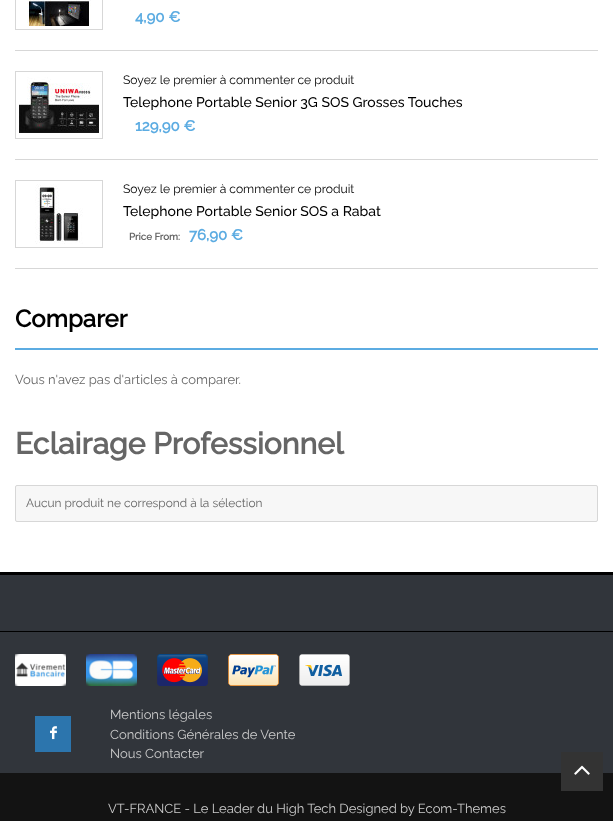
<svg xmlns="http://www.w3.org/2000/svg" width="613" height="821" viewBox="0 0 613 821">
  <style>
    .t1 { font: bold 15px Raleway; fill: #5cace2; }
    .t2 { font: 12.1px Raleway; fill: #000; }
    .t3 { font: 500 14px Raleway; fill: #000; }
    .t4 { font: bold 9.75px Raleway; fill: #666; }
    .t5 { font: bold 24px Raleway; fill: #000; }
    .t6 { font: 13px Raleway; fill: #666; }
    .t7 { font: bold 30px Raleway; fill: #666; }
    .t8 { font: 11.9px Raleway; fill: #666; }
    .t9 { font: 13px Raleway; fill: #ccc; }
  </style>
  <rect width="100%" height="100%" fill="#fff"/>
  <rect x="15" y="50" width="583" height="1" fill="#d7d7d7"/>
  <rect x="15.5" y="-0.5" width="87" height="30" fill="none" stroke="#d7d7d7"/>
  <image x="27" y="0" width="64" height="26" href="images/1.png"/>
  <text x="135" y="22" class="t1">4,90 €</text>
  <rect x="15" y="159" width="583" height="1" fill="#d7d7d7"/>
  <rect x="15.5" y="71.5" width="87" height="67" fill="none" stroke="#d7d7d7"/>
  <image x="19" y="77" width="80" height="56" href="images/2.png"/>
  <text x="123" y="84" class="t2">Soyez le premier à commenter ce produit</text>
  <text x="123" y="107" class="t3">Telephone Portable Senior 3G SOS Grosses Touches</text>
  <text x="135" y="131" class="t1">129,90 €</text>
  <rect x="15" y="268" width="583" height="1" fill="#d7d7d7"/>
  <rect x="15.5" y="180.5" width="87" height="67" fill="none" stroke="#d7d7d7"/>
  <image x="35" y="184" width="48" height="60" href="images/3.png"/>
  <text x="123" y="193" class="t2">Soyez le premier à commenter ce produit</text>
  <text x="123" y="216" class="t3">Telephone Portable Senior SOS a Rabat</text>
  <text x="129" y="240" class="t4">Price From:</text>
  <text x="189" y="240" class="t1">76,90 €</text>
  <rect x="15" y="348" width="583" height="2" fill="#5cace2"/>
  <text x="15" y="327" class="t5">Comparer</text>
  <text x="15" y="384" class="t6">Vous n'avez pas d'articles à comparer.</text>
  <text x="15" y="454" class="t7">Eclairage Professionnel</text>
  <rect x="15.5" y="485.5" width="582" height="36" rx="1.5" fill="#f7f7f7" stroke="#d7d7d7"/>
  <text x="26" y="507" class="t8">Aucun produit ne correspond à la sélection</text>
  <rect x="0" y="575" width="613" height="198" fill="#31353b"/>
  <rect x="0" y="572" width="613" height="3" fill="#000"/>
  <rect x="0" y="631" width="613" height="1" fill="#000"/>
  <image x="15" y="654" width="51" height="32" href="images/4.png"/>
  <image x="86" y="654" width="51" height="32" href="images/5.png"/>
  <image x="157" y="654" width="51" height="32" href="images/6.png"/>
  <image x="228" y="654" width="51" height="32" href="images/7.png"/>
  <image x="299" y="654" width="51" height="32" href="images/8.png"/>
  <rect x="35" y="716" width="36" height="36" fill="#2c75ad"/>
  <image x="50" y="726" width="7" height="14" href="images/9.png"/>
  <text x="110" y="719" class="t9">Mentions légales</text>
  <text x="110" y="739" class="t9">Conditions Générales de Vente</text>
  <text x="110" y="758" class="t9">Nous Contacter</text>
  <rect x="0" y="773" width="613" height="48" fill="#131313"/>
  <text x="108" y="813" class="t9">VT-FRANCE - Le Leader du High Tech Designed by Ecom-Themes</text>
  <rect x="561" y="752" width="42" height="39" fill="#333"/>
  <image x="574" y="765" width="16" height="10" href="images/10.png"/>
</svg>
